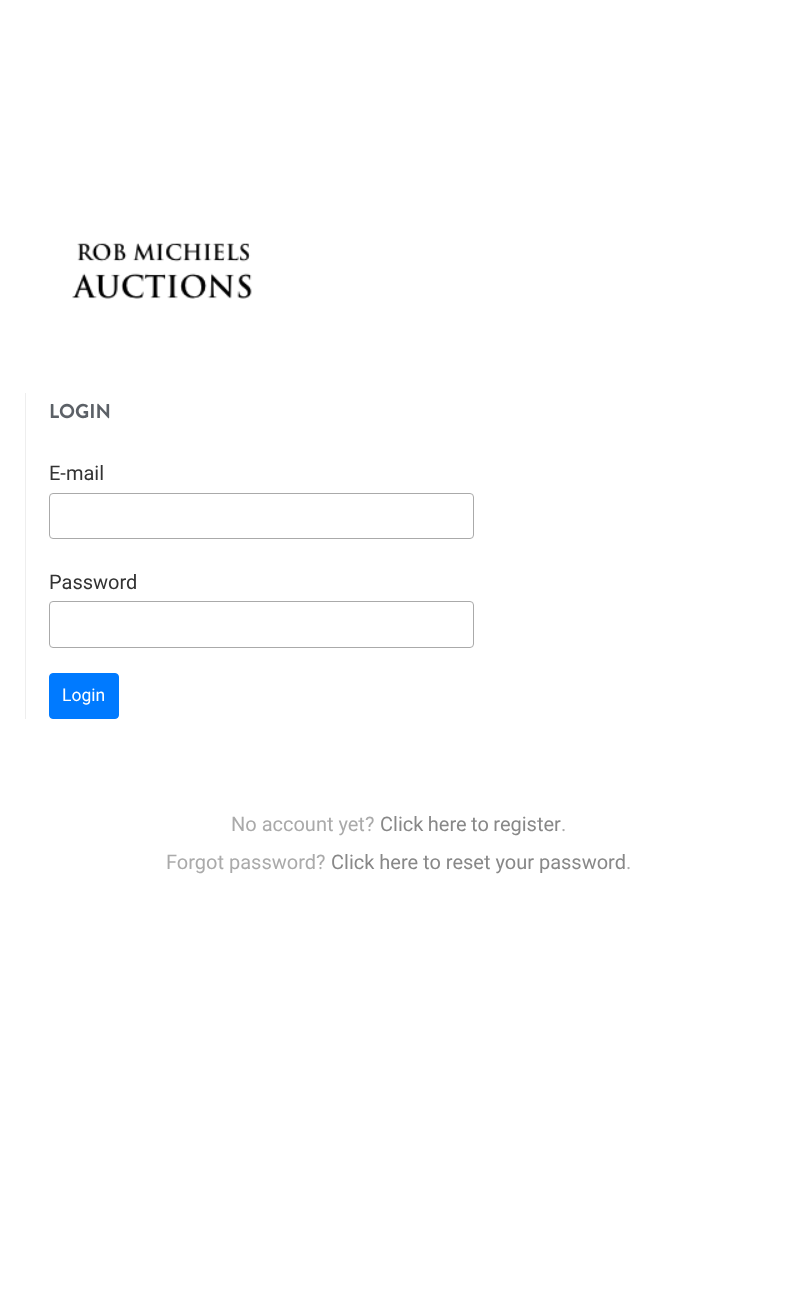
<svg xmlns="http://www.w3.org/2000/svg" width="797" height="1301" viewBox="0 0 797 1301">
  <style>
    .t1 { font: bold 20px Brandon Grotesque; fill: #5c6167; }
    .t2 { font: 20px Roboto; fill: #333; }
    .t3 { font: 17.5px Roboto; fill: #fff; }
    .t4 { font: 20px Roboto; fill: #aaa; }
    .t5 { font: 20px Roboto; fill: #888; }
  </style>
  <rect width="100%" height="100%" fill="#fff"/>
  <image x="72" y="243" width="180" height="56" href="images/1.png"/>
  <rect x="25" y="393" width="1" height="326" fill="#eee"/>
  <text x="49" y="418" class="t1">LOGIN</text>
  <text x="49" y="480" class="t2">E-mail</text>
  <rect x="49.5" y="493.5" width="424" height="45" rx="3.5" fill="none" stroke="#aaa"/>
  <text x="49" y="589" class="t2">Password</text>
  <rect x="49.5" y="601.5" width="424" height="46" rx="3.5" fill="none" stroke="#aaa"/>
  <rect x="49.5" y="673.5" width="69" height="45" rx="3.5" fill="#007aff" stroke="#007aff"/>
  <text x="62" y="701" class="t3">Login</text>
  <text x="231" y="831" class="t4">No account yet?</text>
  <text x="380" y="831" word-spacing="-0.5" class="t5">Click here to register</text>
  <text x="561" y="831" class="t4">.</text>
  <text x="166" y="869" class="t4">Forgot password?</text>
  <text x="331" y="869" class="t5">Click here to reset your password</text>
  <text x="626" y="869" class="t4">.</text>
</svg>
